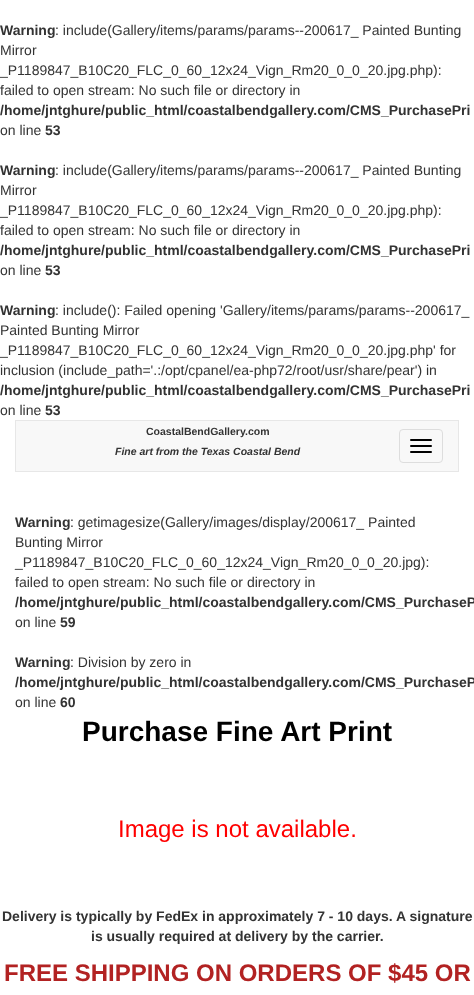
<svg xmlns="http://www.w3.org/2000/svg" width="474" height="995" viewBox="0 0 474 995">
  <style>
    .t1 { font: bold 14px Liberation Sans; fill: #333; }
    .t2 { font: 14px Liberation Sans; fill: #333; }
    .t3 { font: bold 10.5px Liberation Sans; fill: #333; }
    .t4 { font: italic bold 10.5px Liberation Sans; fill: #333; }
    .t5 { font: bold 28px Liberation Sans; fill: #000; }
    .t6 { font: 24px Liberation Sans; fill: #f00; }
    .t7 { font: bold 24px Liberation Sans; fill: #b22222; }
  </style>
  <rect width="100%" height="100%" fill="#fff"/>
  <text x="0" y="35" class="t1">Warning</text>
  <text x="55" y="35" class="t2">: include(Gallery/items/params/params--200617_ Painted Bunting</text>
  <text x="0" y="55" class="t2">Mirror</text>
  <text x="0" y="75" class="t2">_P1189847_B10C20_FLC_0_60_12x24_Vign_Rm20_0_0_20.jpg.php):</text>
  <text x="0" y="95" class="t2">failed to open stream: No such file or directory in</text>
  <text x="0" y="115" class="t1">/home/jntghure/public_html/coastalbendgallery.com/CMS_PurchasePri</text>
  <text x="0" y="135" class="t2">on line</text>
  <text x="45" y="135" class="t1">53</text>
  <text x="0" y="175" class="t1">Warning</text>
  <text x="55" y="175" class="t2">: include(Gallery/items/params/params--200617_ Painted Bunting</text>
  <text x="0" y="195" class="t2">Mirror</text>
  <text x="0" y="215" class="t2">_P1189847_B10C20_FLC_0_60_12x24_Vign_Rm20_0_0_20.jpg.php):</text>
  <text x="0" y="235" class="t2">failed to open stream: No such file or directory in</text>
  <text x="0" y="255" class="t1">/home/jntghure/public_html/coastalbendgallery.com/CMS_PurchasePri</text>
  <text x="0" y="275" class="t2">on line</text>
  <text x="45" y="275" class="t1">53</text>
  <text x="0" y="315" class="t1">Warning</text>
  <text x="55" y="315" class="t2">: include(): Failed opening 'Gallery/items/params/params--200617_</text>
  <text x="0" y="335" class="t2">Painted Bunting Mirror</text>
  <text x="0" y="355" class="t2">_P1189847_B10C20_FLC_0_60_12x24_Vign_Rm20_0_0_20.jpg.php' for</text>
  <text x="0" y="375" class="t2">inclusion (include_path='.:/opt/cpanel/ea-php72/root/usr/share/pear') in</text>
  <text x="0" y="395" class="t1">/home/jntghure/public_html/coastalbendgallery.com/CMS_PurchasePri</text>
  <text x="0" y="415" class="t2">on line</text>
  <text x="45" y="415" class="t1">53</text>
  <rect x="15.5" y="420.5" width="443" height="51" fill="#f8f8f8" stroke="#e7e7e7"/>
  <text x="146" y="435" class="t3">CoastalBendGallery.com</text>
  <text x="115" y="455" class="t4">Fine art from the Texas Coastal Bend</text>
  <rect x="399.5" y="429.5" width="43" height="33" rx="3.5" fill="none" stroke="#ddd"/>
  <rect x="410" y="439" width="22" height="2" rx="1" fill="#000"/>
  <rect x="410" y="445" width="22" height="2" rx="1" fill="#000"/>
  <rect x="410" y="451" width="22" height="2" rx="1" fill="#000"/>
  <text x="15" y="527" class="t1">Warning</text>
  <text x="70" y="527" class="t2">: getimagesize(Gallery/images/display/200617_ Painted</text>
  <text x="15" y="547" class="t2">Bunting Mirror</text>
  <text x="15" y="567" class="t2">_P1189847_B10C20_FLC_0_60_12x24_Vign_Rm20_0_0_20.jpg):</text>
  <text x="15" y="587" class="t2">failed to open stream: No such file or directory in</text>
  <text x="15" y="607" class="t1">/home/jntghure/public_html/coastalbendgallery.com/CMS_PurchaseP</text>
  <text x="15" y="627" class="t2">on line</text>
  <text x="60" y="627" class="t1">59</text>
  <text x="15" y="667" class="t1">Warning</text>
  <text x="70" y="667" class="t2">: Division by zero in</text>
  <text x="15" y="687" class="t1">/home/jntghure/public_html/coastalbendgallery.com/CMS_PurchaseP</text>
  <text x="15" y="707" class="t2">on line</text>
  <text x="60" y="707" class="t1">60</text>
  <text x="82" y="741" class="t5">Purchase Fine Art Print</text>
  <text x="118" y="837" class="t6">Image is not available.</text>
  <text x="2" y="921" class="t1">Delivery is typically by FedEx in approximately 7 - 10 days. A signature</text>
  <text x="91" y="941" class="t1">is usually required at delivery by the carrier.</text>
  <text x="4" y="981" class="t7">FREE SHIPPING ON ORDERS OF $45 OR</text>
</svg>
